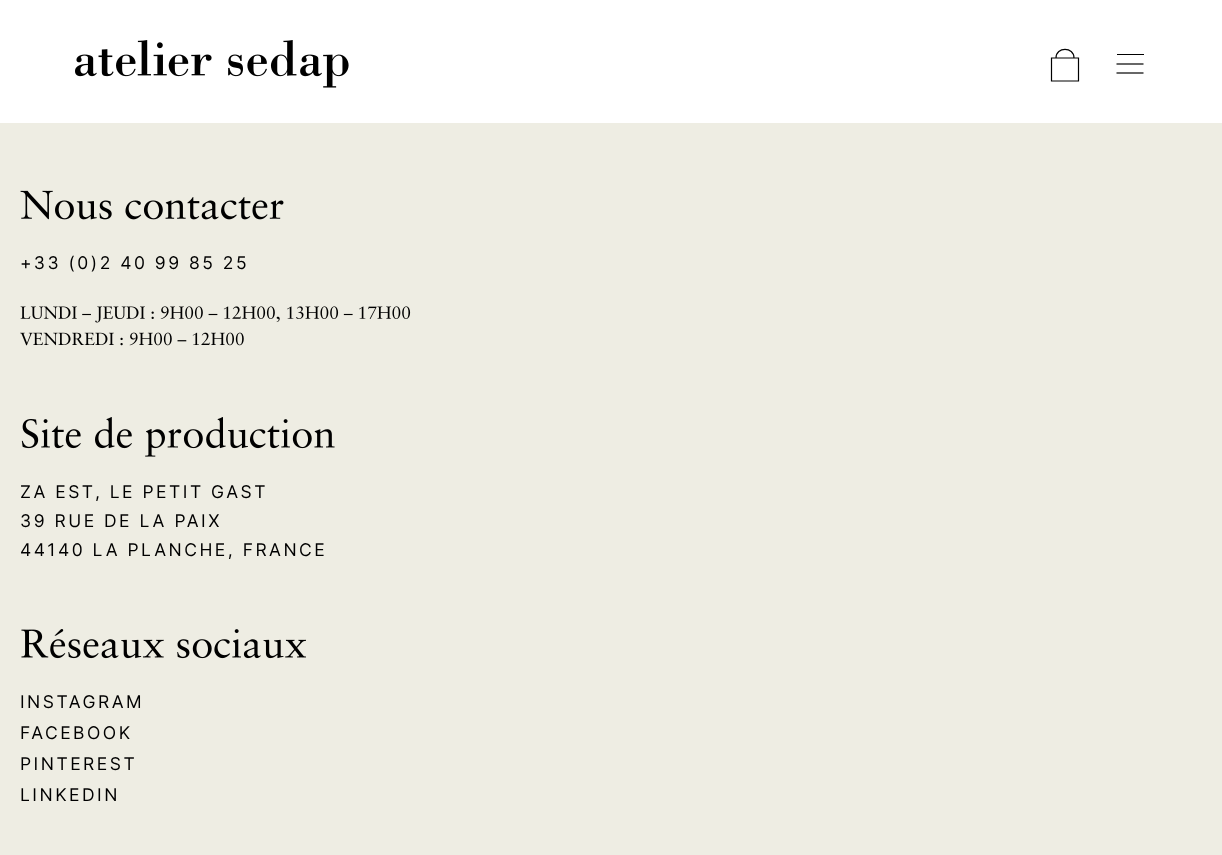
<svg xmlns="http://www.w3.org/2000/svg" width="1222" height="855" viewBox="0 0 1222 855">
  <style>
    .t1 { font: 17.5px Inter; letter-spacing: 2.5px; fill: #000; }
  </style>
  <rect width="100%" height="100%" fill="#fff"/>
  <image x="75" y="40" width="274" height="48" href="images/1.png"/>
  <path d="M1074 58C1074 46.5 1056 46.5 1056 58M1078.5 58H1051.5V81H1078.5Z" fill="none" stroke="#000" stroke-width="1.2"/>
  <path d="M1116.5 64H1143.5" fill="none" stroke="#000" stroke-width="1.2"/>
  <rect x="1117" y="54" width="27" height="1" fill="#000"/>
  <path d="M1116.5 73H1143.5" fill="none" stroke="#000" stroke-width="1.2"/>
  <rect x="0" y="123" width="1222" height="732" fill="#eeede3"/>
  <image x="20" y="190" width="264" height="30" href="images/2.png"/>
  <text x="20" y="269" class="t1">+33 (0)2 40 99 85 25</text>
  <image x="20" y="306" width="391" height="17" href="images/3.png"/>
  <image x="20" y="332" width="224" height="14" href="images/4.png"/>
  <image x="21" y="417" width="314" height="40" href="images/5.png"/>
  <text x="20" y="498" class="t1">ZA EST, LE PETIT GAST</text>
  <text x="20" y="527" class="t1">39 RUE DE LA PAIX</text>
  <text x="20" y="556" class="t1">44140 LA PLANCHE, FRANCE</text>
  <image x="21" y="629" width="285" height="30" href="images/6.png"/>
  <text x="20" y="708" class="t1">INSTAGRAM</text>
  <text x="20" y="739" class="t1">FACEBOOK</text>
  <text x="20" y="770" class="t1">PINTEREST</text>
  <text x="20" y="801" class="t1">LINKEDIN</text>
</svg>
